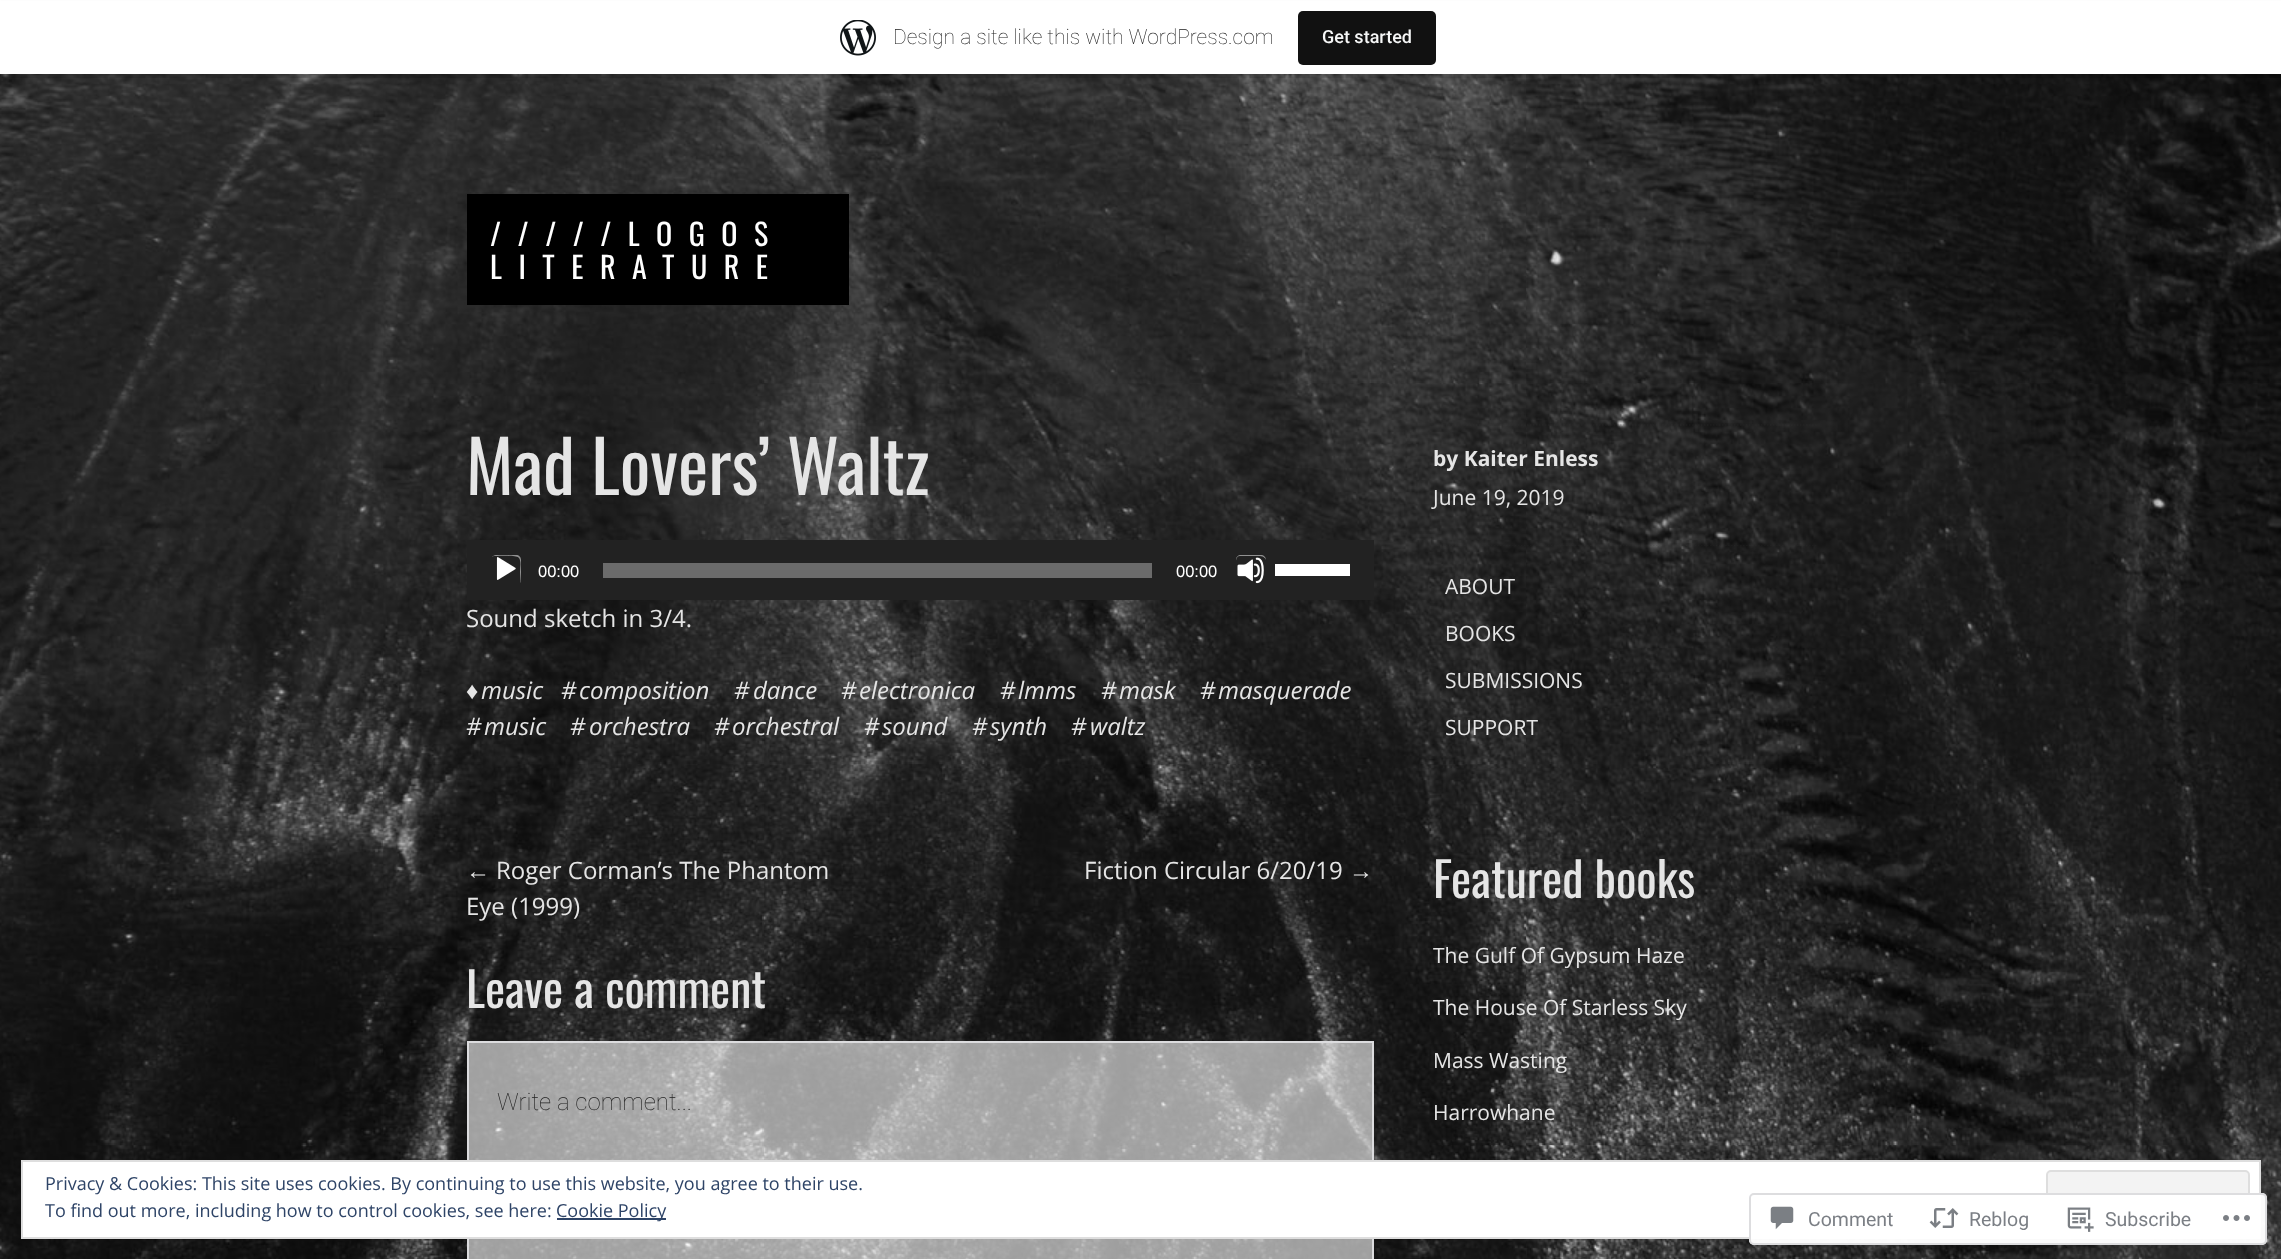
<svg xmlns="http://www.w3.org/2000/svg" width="2281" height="1259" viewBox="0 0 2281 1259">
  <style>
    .t1 { font: 100 21px Roboto; fill: #171717; }
    .t2 { font: 500 18px Roboto; fill: #f6f7f7; }
    .t3 { font: 30px Oswald; letter-spacing: 16.5px; fill: #fff; }
    .t4 { font: 72px Oswald; fill: #e5e5e5; }
    .t5 { font: bold 21px Open Sans; fill: #e5e5e5; }
    .t6 { font: 21px Open Sans; fill: #e5e5e5; }
    .t7 { font: 16.5px Liberation Sans; fill: #fff; }
    .t8 { font: 24px Open Sans; fill: #e5e5e5; }
    .t9 { font: italic 24px Open Sans; fill: #e5e5e5; }
    .t10 { font: italic 24px Liberation Sans; fill: #e5e5e5; }
    .t11 { font: 24px Liberation Sans; fill: #e5e5e5; }
    .t12 { font: 48px Oswald; fill: #e5e5e5; }
    .t13 { font: 100 24px Roboto; fill: #222; }
    .t14 { font: 18px Open Sans; fill: #2e4467; }
    .t15 { font: 19.5px Roboto; fill: #7b7f85; }
  </style>
  <defs>
    <clipPath id="clip1"><rect x="1434" y="545" width="383" height="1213"/></clipPath>
  </defs>
  <rect width="100%" height="100%" fill="#fff"/>
  <image x="0" y="74" width="2281" height="1185" href="images/1.png"/>
  <rect x="0" y="2" width="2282" height="73" fill="#0000000d" filter="blur(1.5px)"/>
  <path d="M2 74V78H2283V5H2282V74Z" fill="#00000014"/>
  <rect x="0" y="1" width="2281" height="73" fill="#fff"/>
  <image x="840" y="20" width="36" height="36" href="images/2.png"/>
  <text x="893" y="44" class="t1">Design a site like this with WordPress.com</text>
  <rect x="1298" y="11" width="138" height="54" rx="5" fill="#111"/>
  <text x="1322" y="43" class="t2">Get started</text>
  <rect x="467" y="194" width="382" height="111" fill="#000"/>
  <text x="490" y="246" class="t3">/////LOGOS</text>
  <text x="490" y="279" class="t3">LITERATURE</text>
  <text x="466" y="495" class="t4">Mad Lovers’ Waltz</text>
  <path d="M1434 425H1816.5" fill="none" stroke="#39393933" stroke-width="1.5" stroke-dasharray="1.5 1.5"/>
  <text x="1433" y="466" class="t5">by Kaiter Enless</text>
  <text x="1433" y="505" class="t6">June 19, 2019</text>
  <rect x="467" y="540" width="907" height="60" fill="#222"/>
  <image x="496" y="557" width="20" height="23" href="images/3.png"/>
  <path d="M495 556C499.5 556 515.5 555 518.5 557.5C519.5 558.5 520 559.5 520 560.5C521 564 520 568 520 572L520.5 580.5L520 583C520.5 582.5 521 581 521 580V560C521 557 519 555 516 555H496C494.5 555 492.5 556 492 557C492.5 556.5 493.5 556 495 556Z" fill="#919191"/>
  <text x="538" y="577" class="t7">00:00</text>
  <rect x="603" y="563" width="549" height="15" fill="#6b6b6b"/>
  <text x="1176" y="577" class="t7">00:00</text>
  <image x="1237" y="557" width="27" height="27" href="images/4.png"/>
  <path d="M1240 556H1258C1263 556 1265 557.5 1266 560C1266 557 1263.5 555 1261 555H1241C1238 555 1236 557 1236 560V560.5C1236.5 558 1237.5 556 1240 556Z" fill="#919191"/>
  <rect x="1275" y="564" width="75" height="12" fill="#fff"/>
  <text x="466" y="627" class="t8">Sound sketch in 3/4.</text>
  <text x="561" y="699" class="t9">#</text>
  <text x="579" y="699" class="t9">composition</text>
  <text x="734" y="699" class="t9">#</text>
  <text x="753" y="699" class="t9">dance</text>
  <text x="841" y="699" class="t9">#</text>
  <text x="859" y="699" class="t9">electronica</text>
  <text x="1000" y="699" class="t9">#</text>
  <text x="1018" y="699" class="t9">lmms</text>
  <text x="1101" y="699" class="t9">#</text>
  <text x="1119" y="699" class="t9">mask</text>
  <text x="1200" y="699" class="t9">#</text>
  <text x="1218" y="699" class="t9">masquerade</text>
  <text x="466" y="735" class="t9">#</text>
  <text x="484" y="735" class="t9">music</text>
  <text x="570" y="735" class="t9">#</text>
  <text x="589" y="735" class="t9">orchestra</text>
  <text x="714" y="735" class="t9">#</text>
  <text x="732" y="735" class="t9">orchestral</text>
  <text x="864" y="735" class="t9">#</text>
  <text x="882" y="735" class="t9">sound</text>
  <text x="972" y="735" class="t9">#</text>
  <text x="990" y="735" class="t9">synth</text>
  <text x="1071" y="735" class="t9">#</text>
  <text x="1090" y="735" class="t9">waltz</text>
  <text x="466" y="699" class="t10">♦</text>
  <text x="481" y="699" class="t9">music</text>
  <text x="466" y="879" class="t11">←</text>
  <text x="496" y="879" class="t8">Roger Corman’s The Phantom</text>
  <text x="466" y="915" class="t8">Eye (1999)</text>
  <text x="1084" y="879" class="t8">Fiction Circular 6/20/19</text>
  <text x="1349" y="879" class="t11">→</text>
  <text x="466" y="1008" class="t12">Leave a comment</text>
  <rect x="468" y="1042" width="905" height="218" fill="#ffffff99" stroke="#dcdcde" stroke-width="2"/>
  <text x="497" y="1110" class="t13">Write a comment...</text>
  <g clip-path="url(#clip1)">
    <path d="M1434 545H1816.5" fill="none" stroke="#39393933" stroke-width="1.5" stroke-dasharray="1.5 1.5"/>
  </g>
  <text x="1445" y="594" class="t6">ABOUT</text>
  <text x="1445" y="641" class="t6">BOOKS</text>
  <text x="1445" y="688" class="t6">SUBMISSIONS</text>
  <text x="1445" y="735" class="t6">SUPPORT</text>
  <text x="1433" y="898" class="t12">Featured books</text>
  <text x="1433" y="963" class="t6">The Gulf Of Gypsum Haze</text>
  <text x="1433" y="1015" class="t6">The House Of Starless Sky</text>
  <text x="1433" y="1068" class="t6">Mass Wasting</text>
  <text x="1433" y="1120" class="t6">Harrowhane</text>
  <rect x="22" y="1161" width="2238" height="77" fill="#fff" stroke="#dedede" stroke-width="2"/>
  <text x="45" y="1190" class="t14">Privacy &amp; Cookies: This site uses cookies. By continuing to use this website, you agree to their use.</text>
  <rect x="2047" y="1171" width="202" height="57" rx="4" fill="#f3f3f3" stroke="#dedede" stroke-width="2"/>
  <text x="45" y="1217" class="t14">To find out more, including how to control cookies, see here:</text>
  <rect x="557" y="1218" width="109" height="2" fill="#2e4467"/>
  <text x="556" y="1217" class="t14">Cookie Policy</text>
  <rect x="1749" y="1193" width="518" height="52" rx="5" fill="#fffffffa"/>
  <rect x="1750" y="1194" width="516" height="50" rx="4" fill="none" stroke="#dcdcdefa" stroke-width="2"/>
  <image x="1770" y="1206" width="24" height="24" href="images/5.png"/>
  <text x="1808" y="1226" class="t15">Comment</text>
  <image x="1929" y="1208" width="30" height="20" href="images/6.png"/>
  <text x="1969" y="1226" class="t15">Reblog</text>
  <image x="2067" y="1207" width="27" height="25" href="images/7.png"/>
  <text x="2105" y="1226" class="t15">Subscribe</text>
  <image x="2223" y="1215" width="27" height="6" href="images/8.png"/>
</svg>
